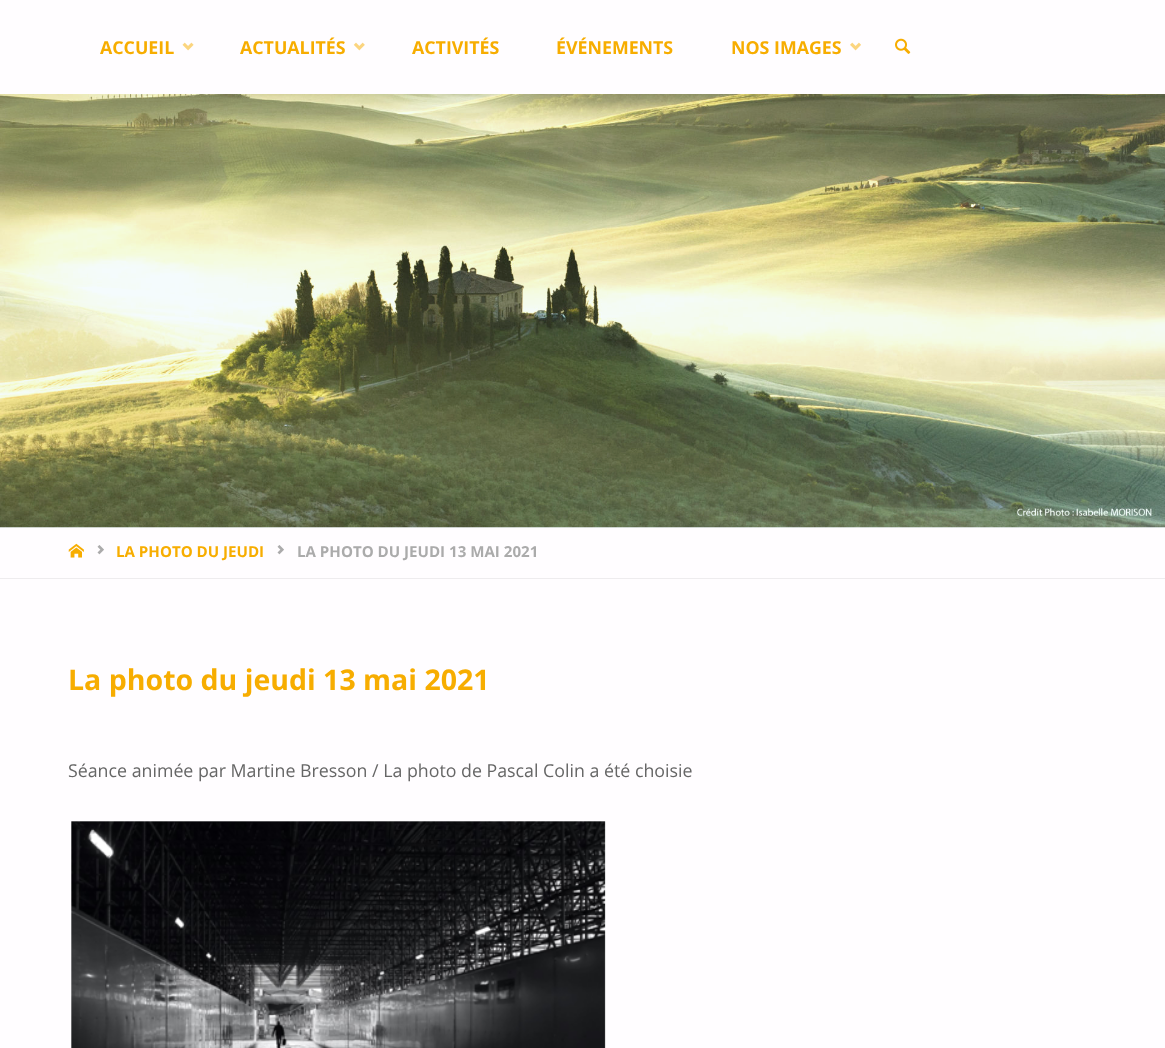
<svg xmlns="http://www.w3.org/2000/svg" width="1165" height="1048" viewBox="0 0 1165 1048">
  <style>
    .t1 { font: bold 17.8px Open Sans; fill: #f7ad00; }
    .t2 { font: bold 15.1px Open Sans; fill: #f7ad00; }
    .t3 { font: bold 15.1px Open Sans; fill: #ababab; }
    .t4 { font: bold 28.5px Open Sans; fill: #f7ad00; }
    .t5 { font: 17.8px Open Sans; fill: #666; }
  </style>
  <rect width="100%" height="100%" fill="#fffdff"/>
  <rect x="0" y="527" width="1165" height="1" fill="#f4f9fd"/>
  <text x="100" y="54" class="t1">ACCUEIL</text>
  <image x="182" y="42" width="12" height="9" href="images/1.png"/>
  <text x="240" y="54" class="t1">ACTUALITÉS</text>
  <image x="353" y="42" width="12" height="9" href="images/2.png"/>
  <text x="412" y="54" class="t1">ACTIVITÉS</text>
  <text x="556" y="54" class="t1">ÉVÉNEMENTS</text>
  <text x="731" y="54" class="t1">NOS IMAGES</text>
  <image x="850" y="42" width="11" height="9" href="images/3.png"/>
  <image x="895" y="38" width="16" height="16" href="images/4.png"/>
  <image x="0" y="94" width="1165" height="434" href="images/5.png"/>
  <rect x="0" y="578" width="1165" height="1" fill="#eeecee"/>
  <image x="68" y="543" width="16" height="15" href="images/6.png"/>
  <image x="97" y="545" width="7" height="10" href="images/7.png"/>
  <text x="116" y="557" class="t2">LA PHOTO DU JEUDI</text>
  <image x="277" y="545" width="7" height="10" href="images/7.png"/>
  <text x="297" y="557" class="t3">LA PHOTO DU JEUDI 13 MAI 2021</text>
  <text x="68" y="690" class="t4">La photo du jeudi 13 mai 2021</text>
  <text x="68" y="777" class="t5">Séance animée par Martine Bresson / La photo de Pascal Colin a été choisie</text>
  <image x="71" y="821" width="535" height="227" href="images/8.png"/>
</svg>
